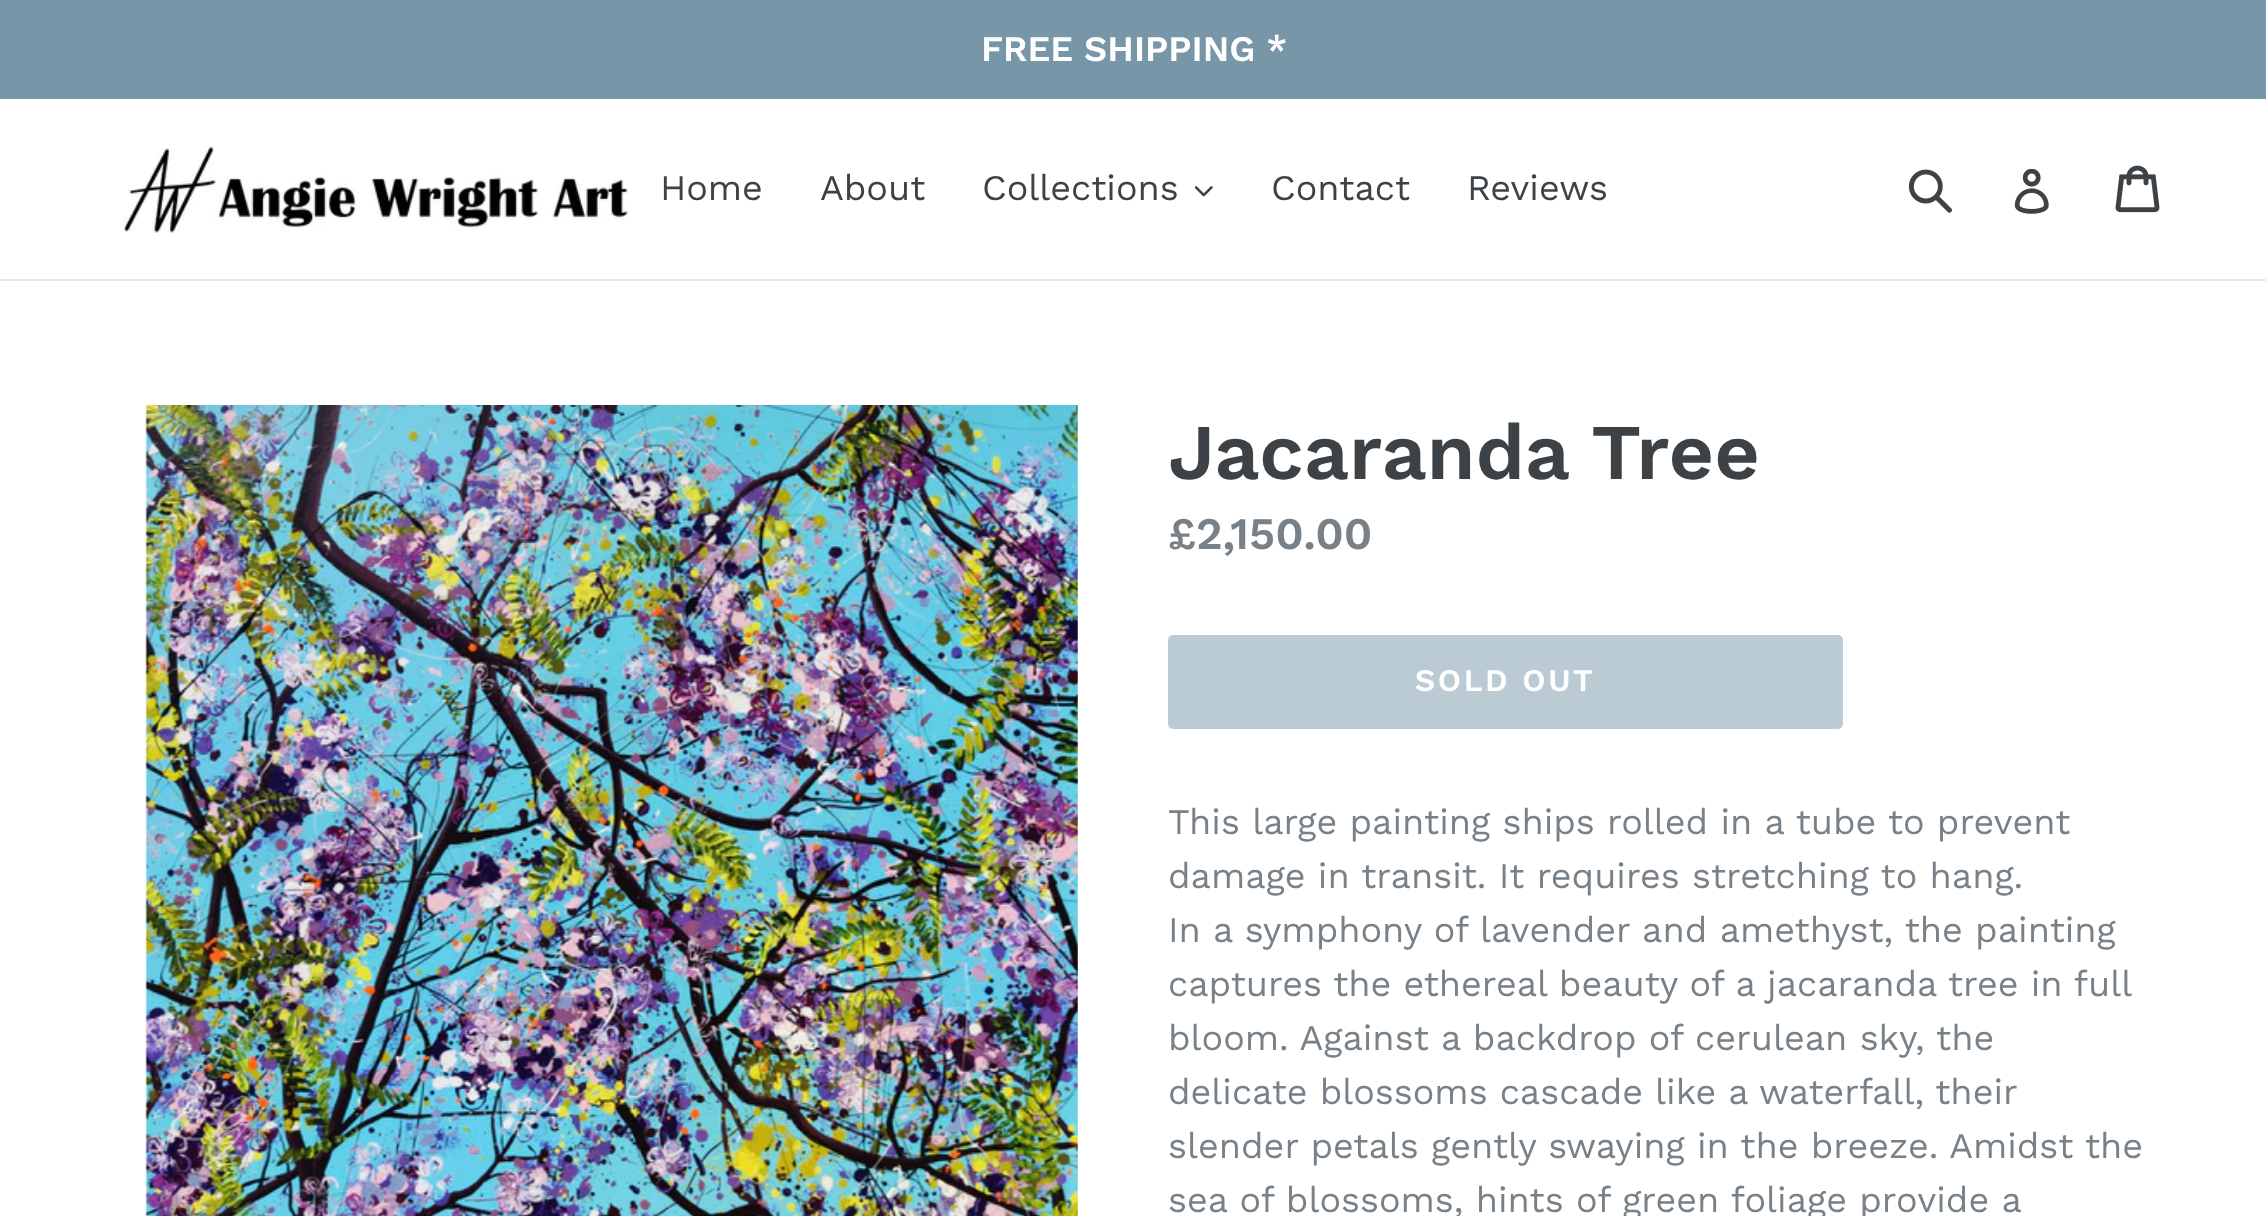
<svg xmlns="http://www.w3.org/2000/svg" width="2266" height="1216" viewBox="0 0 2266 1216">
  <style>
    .t1 { font: 600 36px Work Sans; fill: #fff; }
    .t2 { font: 36px Work Sans; fill: #3d4246; }
    .t3 { font: 600 78.75px Work Sans; fill: #3d4246; }
    .t4 { font: 600 45px Work Sans; fill: #788188; }
    .t5 { font: 600 31.5px Work Sans; letter-spacing: 2.5px; fill: #fff; }
    .t6 { font: 36px Work Sans; fill: #788188; }
  </style>
  <rect width="100%" height="100%" fill="#fff"/>
  <rect x="0" y="0" width="2266" height="99" fill="#7796a8"/>
  <text x="981" y="61" class="t1">FREE SHIPPING *</text>
  <rect x="0" y="279" width="2266" height="2" fill="#e8e9eb"/>
  <image x="123" y="146" width="505" height="87" href="images/1.png"/>
  <text x="660" y="200" class="t2">Home</text>
  <text x="820" y="200" class="t2">About</text>
  <text x="982" y="200" class="t2">Collections</text>
  <image x="1195" y="186" width="18" height="11" href="images/2.png"/>
  <text x="1271" y="200" class="t2">Contact</text>
  <text x="1467" y="200" class="t2">Reviews</text>
  <image x="1908" y="169" width="44" height="44" href="images/3.png"/>
  <image x="2014" y="169" width="35" height="45" href="images/4.png"/>
  <image x="2115" y="165" width="45" height="48" href="images/5.png"/>
  <image x="145" y="405" width="933" height="811" href="images/6.png"/>
  <text x="1168" y="479" class="t3">Jacaranda Tree</text>
  <text x="1168" y="549" class="t4">£2,150.00</text>
  <rect x="1168" y="635" width="675" height="94" rx="5" fill="#bbcbd4"/>
  <text x="1415" y="691" class="t5">SOLD OUT</text>
  <text x="1168" y="834" class="t6">This large painting ships rolled in a tube to prevent</text>
  <text x="1168" y="888" class="t6">damage in transit. It requires stretching to hang.</text>
  <text x="1168" y="942" class="t6">In a symphony of lavender and amethyst, the painting</text>
  <text x="1168" y="996" word-spacing="-0.25" class="t6">captures the ethereal beauty of a jacaranda tree in full</text>
  <text x="1168" y="1050" class="t6">bloom. Against a backdrop of cerulean sky, the</text>
  <text x="1168" y="1104" word-spacing="-0.25" class="t6">delicate blossoms cascade like a waterfall, their</text>
  <text x="1168" y="1158" class="t6">slender petals gently swaying in the breeze. Amidst the</text>
  <text x="1168" y="1212" class="t6">sea of blossoms, hints of green foliage provide a</text>
</svg>
